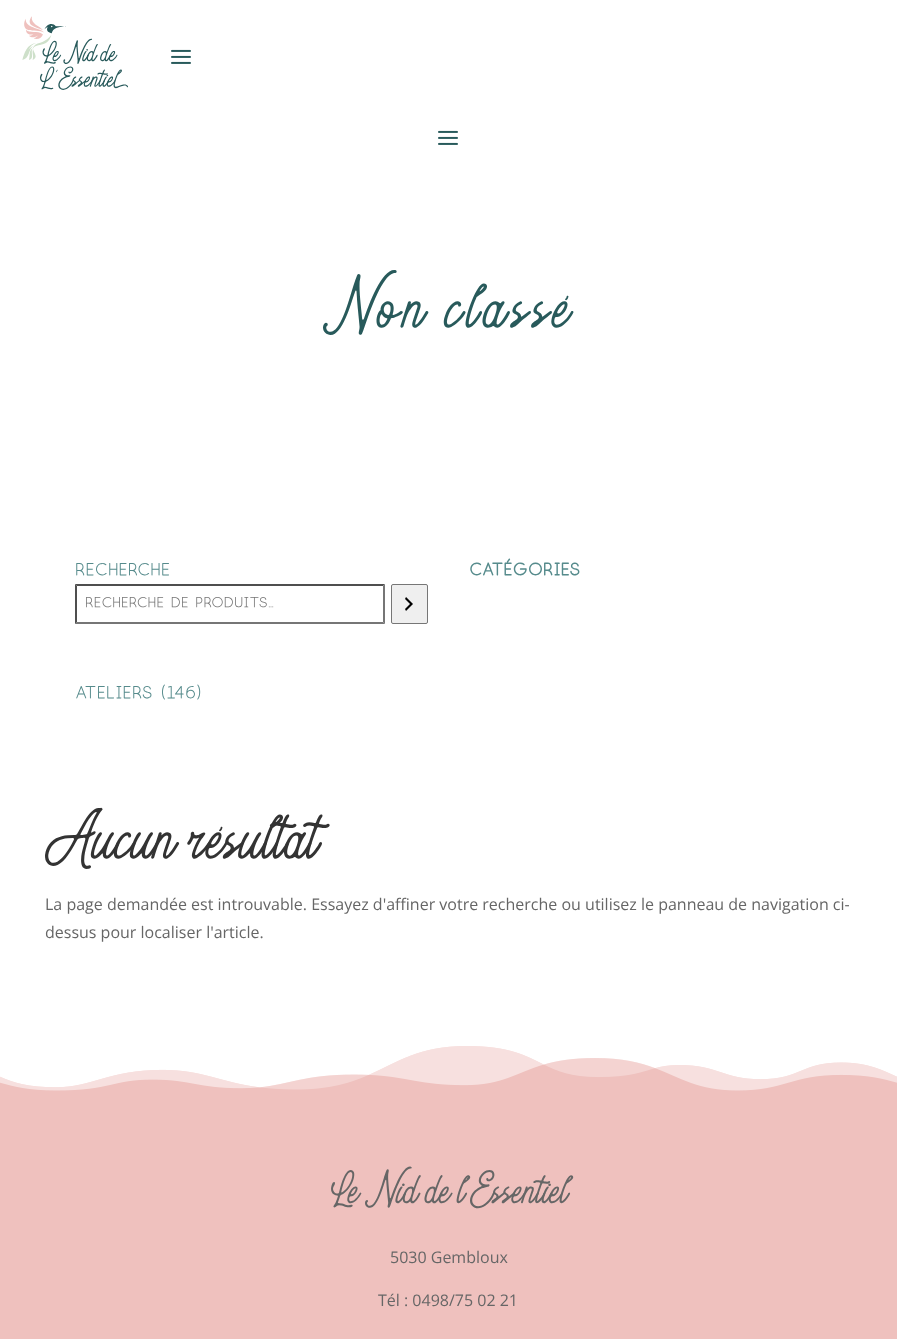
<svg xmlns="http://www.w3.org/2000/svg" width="897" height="1339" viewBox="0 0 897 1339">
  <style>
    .t1 { font: 60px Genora; letter-spacing: 5px; fill: #285a5b; }
    .t2 { font: 16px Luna; fill: #568b8c; }
    .t3 { font: 13.3px Luna; fill: #757575; }
    .t4 { font: bold 16px Luna; fill: #568b8c; }
    .t5 { font: 60px Genora; fill: #333; }
    .t6 { font: 16px Open Sans; fill: #666; }
    .t7 { font: 38px Genora; fill: #666; }
  </style>
  <rect width="100%" height="100%" fill="#fff"/>
  <image x="22" y="16" width="106" height="74" href="images/1.png"/>
  <image x="171" y="49" width="20" height="15" href="images/2.png"/>
  <image x="438" y="130" width="20" height="15" href="images/2.png"/>
  <text x="323" y="329" class="t1">Non classé</text>
  <text x="75" y="575" class="t2">Recherche</text>
  <path d="M75 584H385L383 586H77Z" fill="#4f4f4f"/>
  <path d="M385 584V624L383 622V586Z" fill="#767676"/>
  <path d="M385 624H75L77 622H383Z" fill="#767676"/>
  <path d="M75 624V584L77 586V622Z" fill="#4f4f4f"/>
  <text x="85" y="607" class="t3">Recherche de produits…</text>
  <rect x="391.5" y="584.5" width="36" height="39" rx="1.5" fill="#efefef" stroke="#767676"/>
  <image x="405" y="597" width="8" height="14" href="images/3.png"/>
  <text x="469" y="575" class="t4">Catégories</text>
  <text x="75" y="698" class="t2">Ateliers (146)</text>
  <text x="45" y="860" class="t5">Aucun résultat</text>
  <text x="45" y="910" class="t6">La page demandée est introuvable. Essayez d'affiner votre recherche ou utilisez le panneau de navigation ci-</text>
  <text x="45" y="938" class="t6">dessus pour localiser l'article.</text>
  <rect x="0" y="1046" width="897" height="293" fill="#efc1be"/>
  <image x="0" y="1046" width="897" height="45" href="images/4.png"/>
  <text x="331" y="1204" class="t7">Le Nid de l’Essentiel</text>
  <text x="390" y="1263" class="t6">5030 Gembloux</text>
  <text x="378" y="1306" class="t6">Tél : 0498/75 02 21</text>
</svg>
